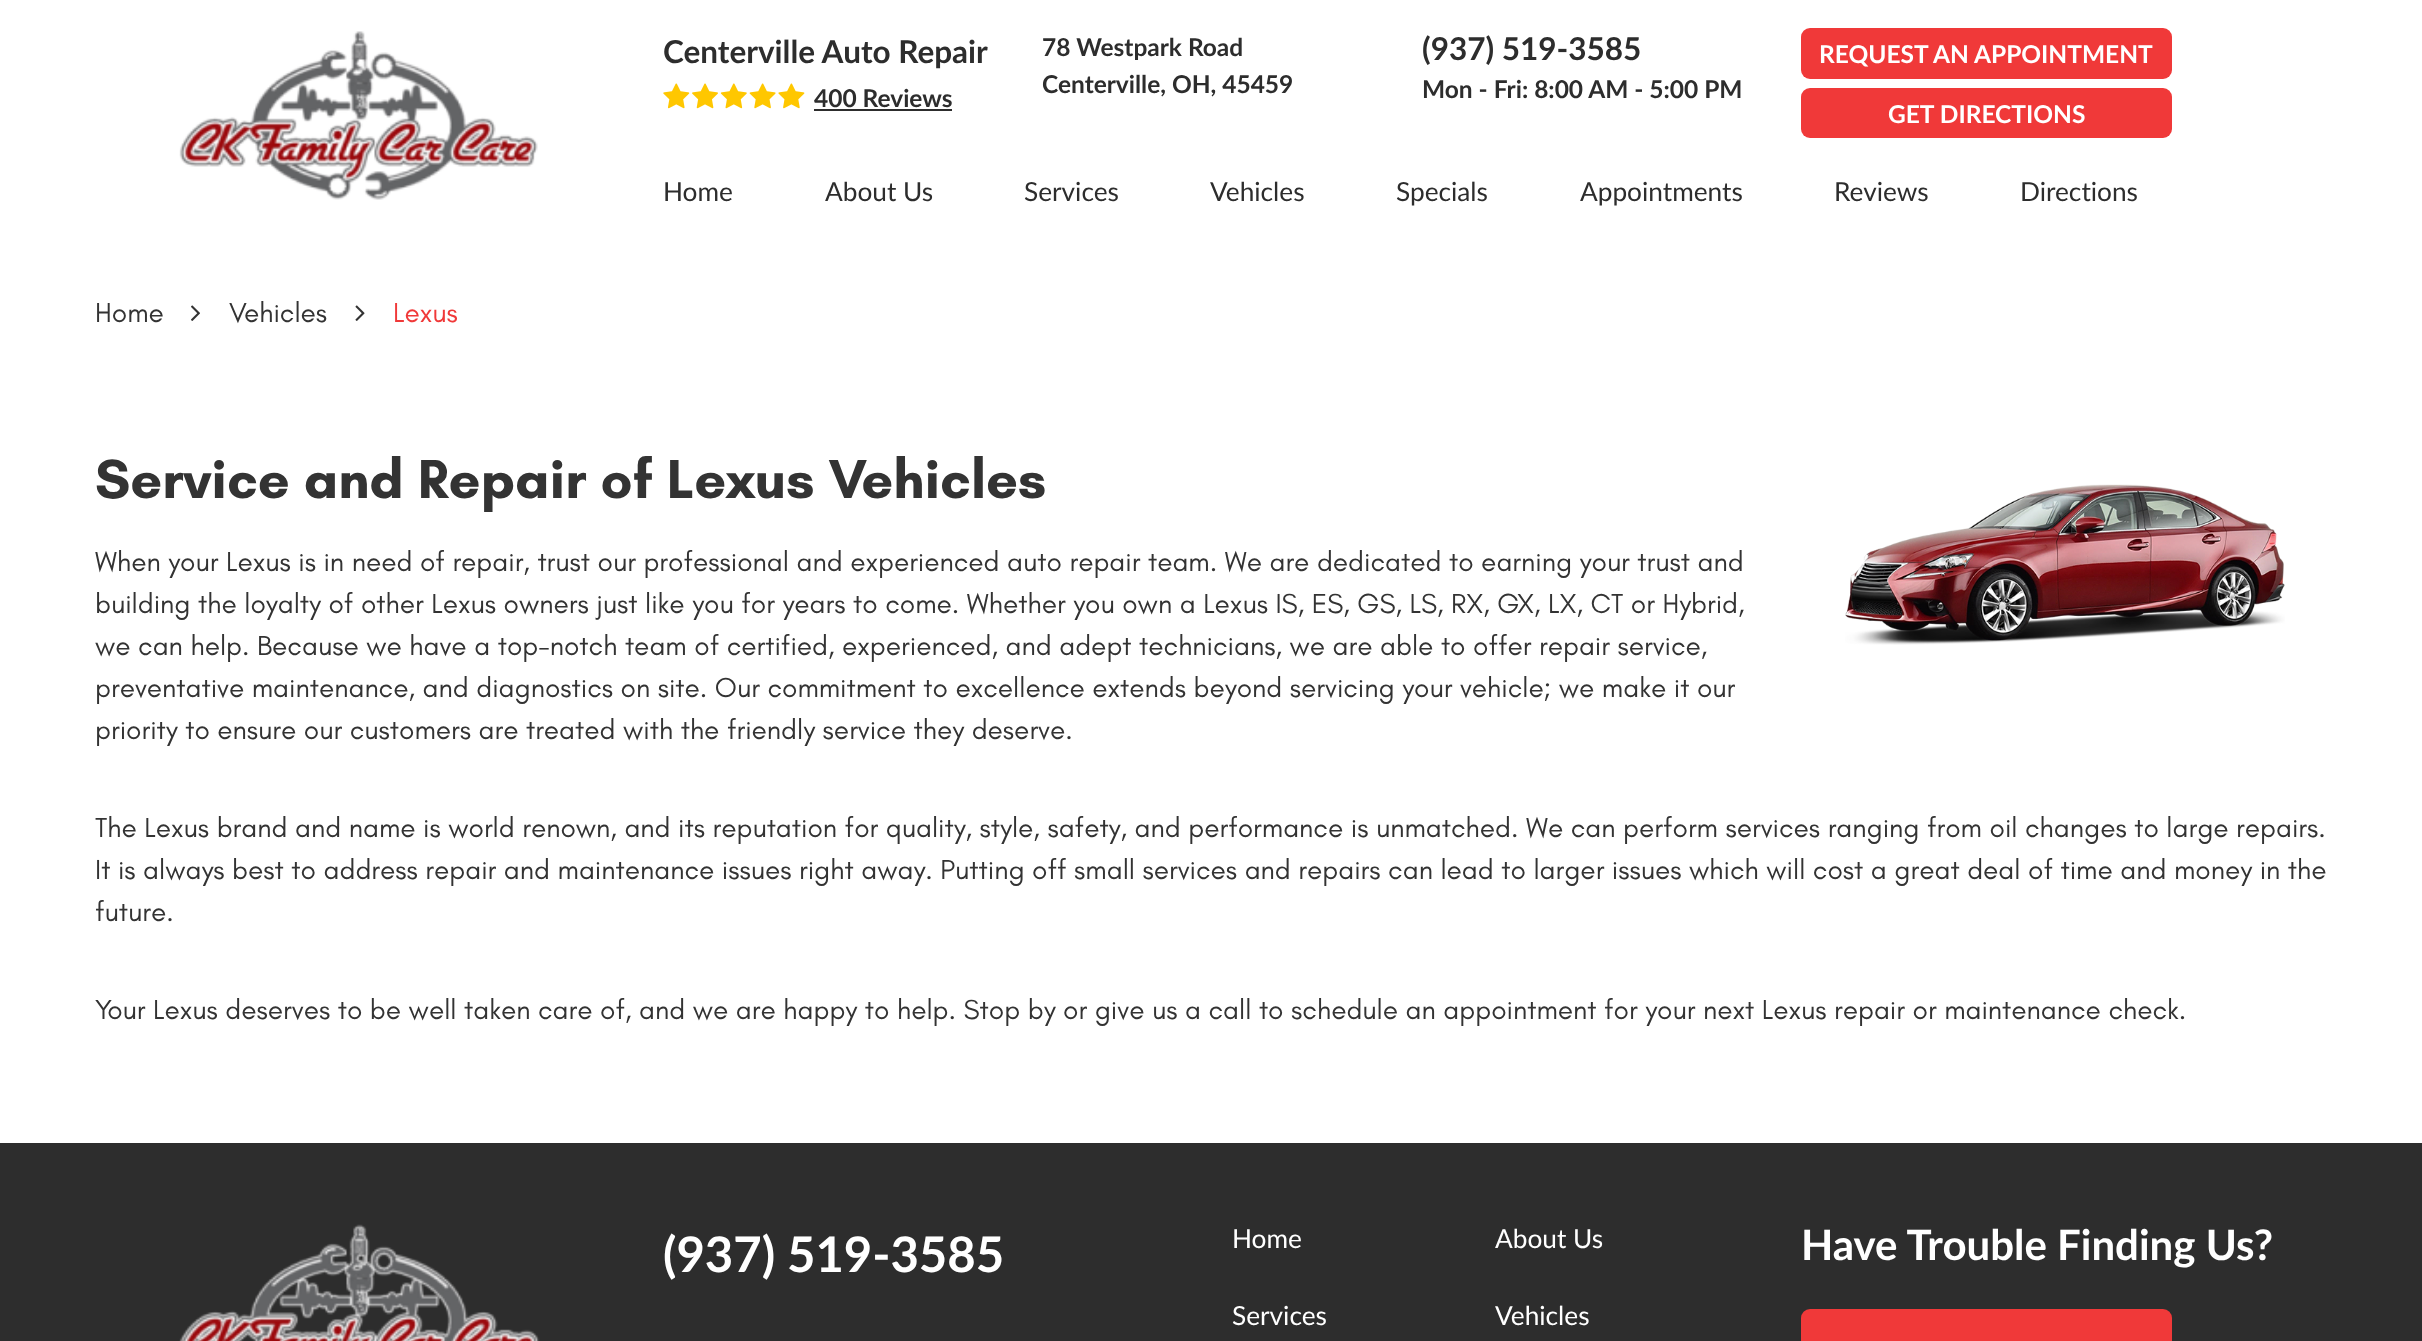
<svg xmlns="http://www.w3.org/2000/svg" width="2422" height="1341" viewBox="0 0 2422 1341">
  <style>
    .t1 { font: bold 31.5px Lato; fill: #2d2d2d; }
    .t2 { font: bold 24.5px Lato; fill: #2d2d2d; }
    .t3 { font: bold 24.5px Lato; fill: #fff; }
    .t4 { font: 26.25px Lato; fill: #2d2d2d; }
    .t5 { font: 28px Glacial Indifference; fill: #333; }
    .t6 { font: 28px Glacial Indifference; fill: #f03939; }
    .t7 { font: bold 56px Glacial Indifference; fill: #333; }
    .t8 { font: bold 49px Lato; fill: #fff; }
    .t9 { font: 26.25px Lato; fill: #fff; }
    .t10 { font: bold 42px Lato; fill: #fff; }
  </style>
  <rect width="100%" height="100%" fill="#fff"/>
  <image x="179" y="31" width="359" height="169" href="images/1.png"/>
  <text x="663" y="63" class="t1">Centerville Auto Repair</text>
  <image x="663" y="83" width="142" height="26" href="images/2.png"/>
  <text x="814" y="107" class="t2">400 Reviews</text>
  <rect x="814" y="109" width="138" height="2" fill="#2d2d2d"/>
  <text x="1042" y="56" class="t2">78 Westpark Road</text>
  <text x="1042" y="93" class="t2">Centerville, OH, 45459</text>
  <text x="1422" y="60" class="t1">(937) 519-3585</text>
  <text x="1422" y="98" class="t2">Mon - Fri: 8:00 AM - 5:00 PM</text>
  <rect x="1801" y="28" width="371" height="51" rx="9" fill="#f03939"/>
  <text x="1819" y="63" class="t3">REQUEST AN APPOINTMENT</text>
  <rect x="1801" y="88" width="371" height="50" rx="9" fill="#f03939"/>
  <text x="1888" y="123" class="t3">GET DIRECTIONS</text>
  <text x="663" y="201" class="t4">Home</text>
  <text x="825" y="201" class="t4">About Us</text>
  <text x="1024" y="201" class="t4">Services</text>
  <text x="1210" y="201" class="t4">Vehicles</text>
  <text x="1396" y="201" class="t4">Specials</text>
  <text x="1580" y="201" class="t4">Appointments</text>
  <text x="1834" y="201" class="t4">Reviews</text>
  <text x="2020" y="201" class="t4">Directions</text>
  <text x="95" y="322" class="t5">Home</text>
  <image x="191" y="305" width="9" height="16" href="images/3.png"/>
  <text x="229" y="322" class="t5">Vehicles</text>
  <image x="355" y="305" width="10" height="16" href="images/4.png"/>
  <text x="393" y="322" class="t6">Lexus</text>
  <text x="95" y="498" class="t7">Service and Repair of Lexus Vehicles</text>
  <image x="1845" y="484" width="440" height="161" href="images/5.png"/>
  <text x="95" y="571" class="t5">When your Lexus is in need of repair, trust our professional and experienced auto repair team. We are dedicated to earning your trust and</text>
  <text x="95" y="613" class="t5">building the loyalty of other Lexus owners just like you for years to come. Whether you own a Lexus IS, ES, GS, LS, RX, GX, LX, CT or Hybrid,</text>
  <text x="95" y="655" class="t5">we can help. Because we have a top-notch team of certified, experienced, and adept technicians, we are able to offer repair service,</text>
  <text x="95" y="697" class="t5">preventative maintenance, and diagnostics on site. Our commitment to excellence extends beyond servicing your vehicle; we make it our</text>
  <text x="95" y="739" class="t5">priority to ensure our customers are treated with the friendly service they deserve.</text>
  <text x="95" y="837" class="t5">The Lexus brand and name is world renown, and its reputation for quality, style, safety, and performance is unmatched. We can perform services ranging from oil changes to large repairs.</text>
  <text x="95" y="879" class="t5">It is always best to address repair and maintenance issues right away. Putting off small services and repairs can lead to larger issues which will cost a great deal of time and money in the</text>
  <text x="95" y="921" class="t5">future.</text>
  <text x="95" y="1019" class="t5">Your Lexus deserves to be well taken care of, and we are happy to help. Stop by or give us a call to schedule an appointment for your next Lexus repair or maintenance check.</text>
  <rect x="0" y="1143" width="2422" height="198" fill="#2d2d2d"/>
  <image x="179" y="1224" width="361" height="117" href="images/6.png"/>
  <text x="663" y="1272" class="t8">(937) 519-3585</text>
  <text x="1232" y="1248" class="t9">Home</text>
  <text x="1495" y="1248" class="t9">About Us</text>
  <text x="1232" y="1325" class="t9">Services</text>
  <text x="1495" y="1325" class="t9">Vehicles</text>
  <text x="1801" y="1260" class="t10">Have Trouble Finding Us?</text>
  <rect x="1801" y="1309" width="371" height="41" rx="9" fill="#f03939"/>
</svg>
